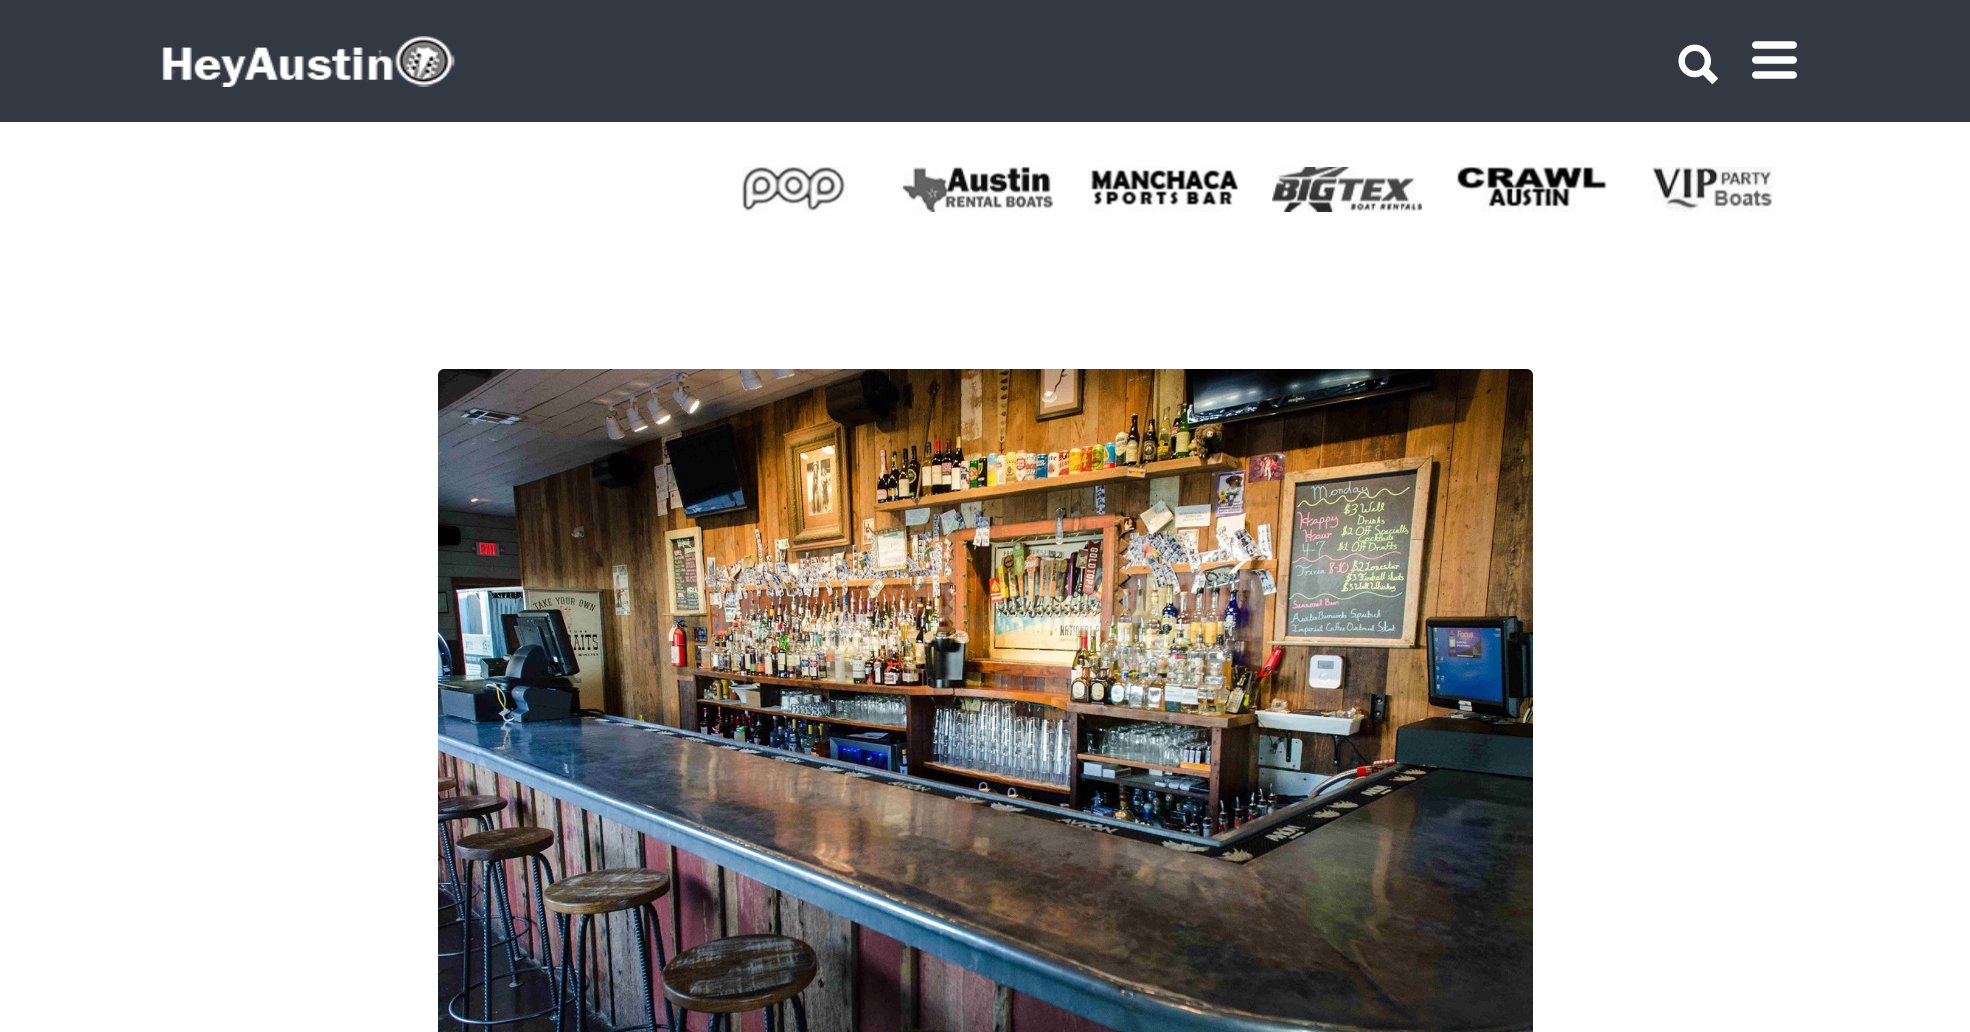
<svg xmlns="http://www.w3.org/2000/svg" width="1970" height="1032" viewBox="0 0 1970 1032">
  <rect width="100%" height="100%" fill="#fff"/>
  <rect x="0" y="0" width="1970" height="122" fill="#333943"/>
  <image x="162" y="36" width="293" height="51" href="images/1.png"/>
  <image x="1678" y="44" width="40" height="40" href="images/2.png"/>
  <image x="1752" y="41" width="45" height="38" href="images/3.png"/>
  <image x="742" y="167" width="107" height="45" href="images/4.png"/>
  <image x="903" y="167" width="150" height="45" href="images/5.png"/>
  <image x="1088" y="167" width="150" height="45" href="images/6.png"/>
  <image x="1272" y="167" width="150" height="45" href="images/7.png"/>
  <image x="1457" y="167" width="150" height="45" href="images/8.png"/>
  <image x="1652" y="167" width="121" height="45" href="images/9.png"/>
  <image x="438" y="369" width="1095" height="663" href="images/10.png"/>
</svg>
